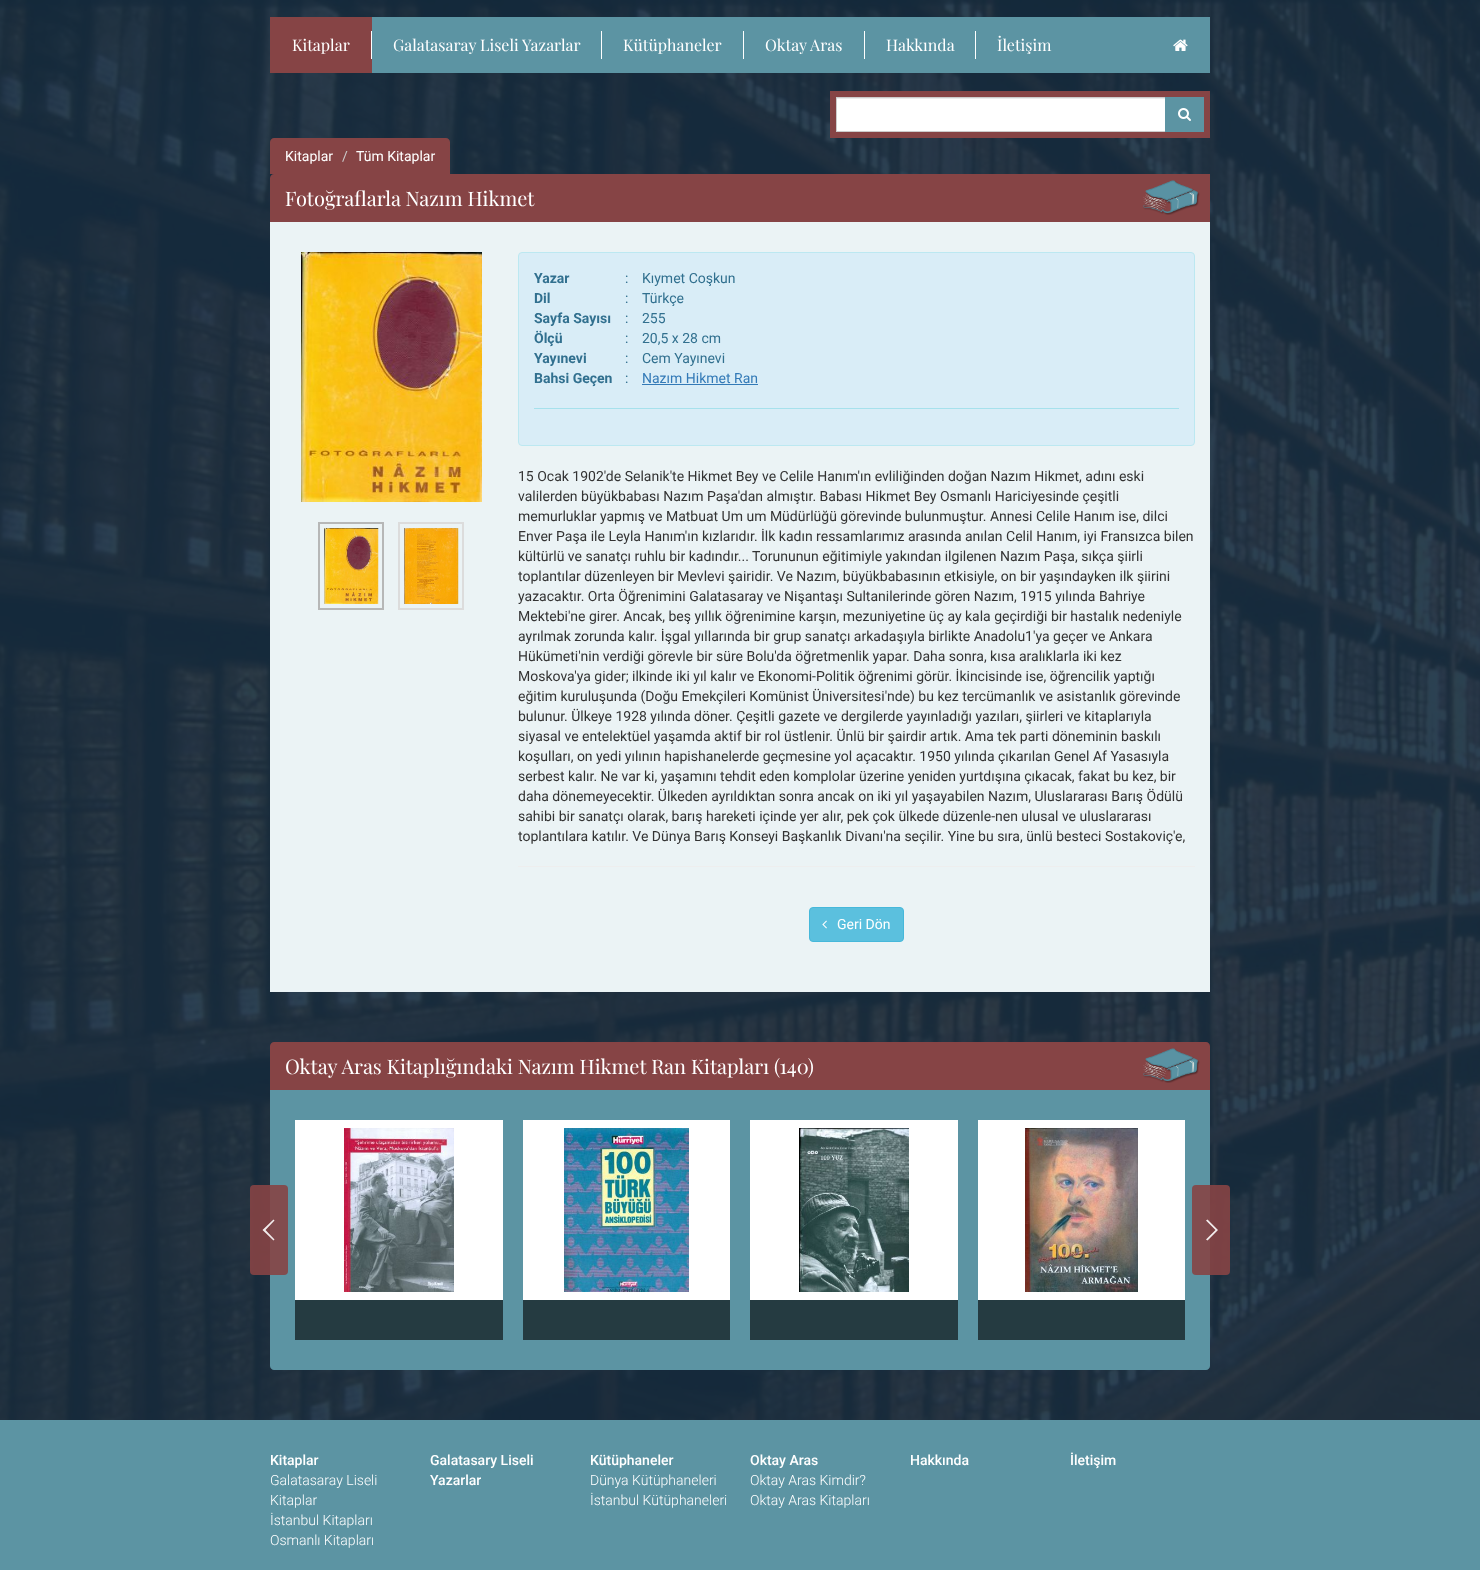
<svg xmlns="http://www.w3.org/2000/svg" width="1480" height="1570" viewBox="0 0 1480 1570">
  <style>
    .t1 { font: 16px Playfair Display; fill: #fff; }
    .t2 { font: 14px Roboto; fill: #fff; }
    .t3 { font: 14px Roboto; fill: #ccc; }
    .t4 { font: 20px Playfair Display; fill: #fff; }
    .t5 { font: bold 14px Roboto; fill: #31708f; }
    .t6 { font: 14px Roboto; fill: #31708f; }
    .t7 { font: 14px Roboto; fill: #337ab7; }
    .t8 { font: 14px Roboto; fill: #333; }
    .t9 { font: 500 14px Roboto; fill: #fff; }
    .t10 { font: 300 14px Roboto; fill: #fff; }
  </style>
  <rect width="100%" height="100%" fill="#fff"/>
  <image x="0" y="0" width="1480" height="1420" href="images/1.png"/>
  <rect x="372" y="17" width="838" height="56" fill="#5c94a3"/>
  <rect x="270" y="17" width="102" height="56" fill="#864445"/>
  <text x="292" y="51" class="t1">Kitaplar</text>
  <rect x="371" y="31" width="1" height="28" fill="#fff"/>
  <text x="393" y="51" class="t1">Galatasaray Liseli Yazarlar</text>
  <rect x="601" y="31" width="1" height="28" fill="#fff"/>
  <text x="623" y="51" class="t1">Kütüphaneler</text>
  <rect x="743" y="31" width="1" height="28" fill="#fff"/>
  <text x="765" y="51" class="t1">Oktay Aras</text>
  <rect x="864" y="31" width="1" height="28" fill="#fff"/>
  <text x="886" y="51" class="t1">Hakkında</text>
  <rect x="975" y="31" width="1" height="28" fill="#fff"/>
  <text x="997" y="51" class="t1">İletişim</text>
  <image x="1173" y="39" width="15" height="12" href="images/2.png"/>
  <path d="M833 94H1207V135H833Z" fill="none" stroke="#864445" stroke-width="6"/>
  <rect x="837" y="99" width="328" height="32" fill="#fff"/>
  <rect x="837" y="98" width="328" height="1" fill="#ececec"/>
  <rect x="836.5" y="97.5" width="329" height="34" fill="none" stroke="#ccc"/>
  <rect x="1165" y="97" width="39" height="35" fill="#5c94a3"/>
  <image x="1178" y="108" width="13" height="13" href="images/3.png"/>
  <path d="M274 138H446C448 138 450 140 450 142V174H270V142C270 140 272 138 274 138Z" fill="#864445"/>
  <text x="285" y="161" class="t2">Kitaplar</text>
  <text x="342" y="161" class="t3">/</text>
  <text x="356" y="161" class="t2">Tüm Kitaplar</text>
  <path d="M274 174H1210V222H270V178C270 176 272 174 274 174Z" fill="#864445"/>
  <text x="285" y="206" class="t4">Fotoğraflarla Nazım Hikmet</text>
  <image x="1143" y="180" width="57" height="35" href="images/4.png"/>
  <rect x="270" y="222" width="940" height="770" fill="#ebf3f5"/>
  <image x="301" y="252" width="181" height="250" href="images/5.png"/>
  <rect x="319" y="523" width="64" height="86" fill="none" stroke="#b6b7b7" stroke-width="2"/>
  <image x="324" y="528" width="55" height="76" href="images/6.png"/>
  <rect x="399" y="523" width="64" height="86" fill="none" stroke="#dcdcdc" stroke-width="2"/>
  <image x="404" y="528" width="55" height="76" href="images/7.png"/>
  <rect x="518.5" y="252.5" width="676" height="193" rx="3.5" fill="#d9edf7" stroke="#bce8f1"/>
  <text x="534" y="283" class="t5">Yazar</text>
  <text x="625" y="283" class="t6">:</text>
  <text x="642" y="283" class="t6">Kıymet Coşkun</text>
  <text x="534" y="303" class="t5">Dil</text>
  <text x="625" y="303" class="t6">:</text>
  <text x="642" y="303" class="t6">Türkçe</text>
  <text x="534" y="323" class="t5">Sayfa Sayısı</text>
  <text x="625" y="323" class="t6">:</text>
  <text x="642" y="323" class="t6">255</text>
  <text x="534" y="343" class="t5">Ölçü</text>
  <text x="625" y="343" class="t6">:</text>
  <text x="642" y="343" class="t6">20,5 x 28 cm</text>
  <text x="534" y="363" class="t5">Yayınevi</text>
  <text x="625" y="363" class="t6">:</text>
  <text x="642" y="363" class="t6">Cem Yayınevi</text>
  <text x="534" y="383" class="t5">Bahsi Geçen</text>
  <text x="625" y="383" class="t6">:</text>
  <text x="642" y="383" class="t7">Nazım Hikmet Ran</text>
  <rect x="642" y="384" width="116" height="1" fill="#337ab7"/>
  <rect x="534" y="408" width="645" height="1" fill="#a6e1ec"/>
  <text x="518" y="481" class="t8">15 Ocak 1902'de Selanik'te Hikmet Bey ve Celile Hanım'ın evliliğinden doğan Nazım Hikmet, adını eski</text>
  <text x="518" y="501" class="t8">valilerden büyükbabası Nazım Paşa'dan almıştır. Babası Hikmet Bey Osmanlı Hariciyesinde çeşitli</text>
  <text x="518" y="521" class="t8">memurluklar yapmış ve Matbuat Um um Müdürlüğü görevinde bulunmuştur. Annesi Celile Hanım ise, dilci</text>
  <text x="518" y="541" class="t8">Enver Paşa ile Leyla Hanım'ın kızlarıdır. İlk kadın ressamlarımız arasında anılan Celil Hanım, iyi Fransızca bilen</text>
  <text x="518" y="561" class="t8">kültürlü ve sanatçı ruhlu bir kadındır... Torununun eğitimiyle yakından ilgilenen Nazım Paşa, sıkça şiirli</text>
  <text x="518" y="581" class="t8">toplantılar düzenleyen bir Mevlevi şairidir. Ve Nazım, büyükbabasının etkisiyle, on bir yaşındayken ilk şiirini</text>
  <text x="518" y="601" class="t8">yazacaktır. Orta Öğrenimini Galatasaray ve Nişantaşı Sultanilerinde gören Nazım, 1915 yılında Bahriye</text>
  <text x="518" y="621" class="t8">Mektebi'ne girer. Ancak, beş yıllık öğrenimine karşın, mezuniyetine üç ay kala geçirdiği bir hastalık nedeniyle</text>
  <text x="518" y="641" class="t8">ayrılmak zorunda kalır. İşgal yıllarında bir grup sanatçı arkadaşıyla birlikte Anadolu1'ya geçer ve Ankara</text>
  <text x="518" y="661" class="t8">Hükümeti'nin verdiği görevle bir süre Bolu'da öğretmenlik yapar. Daha sonra, kısa aralıklarla iki kez</text>
  <text x="518" y="681" class="t8">Moskova'ya gider; ilkinde iki yıl kalır ve Ekonomi-Politik öğrenimi görür. İkincisinde ise, öğrencilik yaptığı</text>
  <text x="518" y="701" class="t8">eğitim kuruluşunda (Doğu Emekçileri Komünist Üniversitesi'nde) bu kez tercümanlık ve asistanlık görevinde</text>
  <text x="518" y="721" class="t8">bulunur. Ülkeye 1928 yılında döner. Çeşitli gazete ve dergilerde yayınladığı yazıları, şiirleri ve kitaplarıyla</text>
  <text x="518" y="741" class="t8">siyasal ve entelektüel yaşamda aktif bir rol üstlenir. Ünlü bir şairdir artık. Ama tek parti döneminin baskılı</text>
  <text x="518" y="761" class="t8">koşulları, on yedi yılının hapishanelerde geçmesine yol açacaktır. 1950 yılında çıkarılan Genel Af Yasasıyla</text>
  <text x="518" y="781" class="t8">serbest kalır. Ne var ki, yaşamını tehdit eden komplolar üzerine yeniden yurtdışına çıkacak, fakat bu kez, bir</text>
  <text x="518" y="801" class="t8">daha dönemeyecektir. Ülkeden ayrıldıktan sonra ancak on iki yıl yaşayabilen Nazım, Uluslararası Barış Ödülü</text>
  <text x="518" y="821" class="t8">sahibi bir sanatçı olarak, barış hareketi içinde yer alır, pek çok ülkede düzenle-nen ulusal ve uluslararası</text>
  <text x="518" y="841" class="t8">toplantılara katılır. Ve Dünya Barış Konseyi Başkanlık Divanı'na seçilir. Yine bu sıra, ünlü besteci Sostakoviç'e,</text>
  <rect x="518" y="866" width="677" height="1" fill="#eee"/>
  <rect x="809.5" y="907.5" width="94" height="34" rx="3.5" fill="#5bc0de" stroke="#46b8da"/>
  <image x="822" y="920" width="5" height="9" href="images/8.png"/>
  <text x="837" y="929" class="t2">Geri Dön</text>
  <path d="M274 1042H1206C1208 1042 1210 1044 1210 1046V1090H270V1046C270 1044 272 1042 274 1042Z" fill="#864445"/>
  <text x="285" y="1074" class="t4">Oktay Aras Kitaplığındaki Nazım Hikmet Ran Kitapları (140)</text>
  <image x="1143" y="1048" width="57" height="35" href="images/4.png"/>
  <path d="M270 1090H1210V1366C1210 1368 1208 1370 1206 1370H274C272 1370 270 1368 270 1366Z" fill="#5c94a3"/>
  <rect x="250" y="1185" width="38" height="90" rx="4" fill="#864445e6"/>
  <path d="M262.5 1230L273.5 1240.5L274.5 1239.5L265.5 1230L274.5 1220.5L273.5 1219.5Z" fill="#ffffffe6"/>
  <rect x="295" y="1120" width="208" height="180" fill="#fff"/>
  <image x="344" y="1128" width="110" height="164" href="images/9.png"/>
  <rect x="295" y="1300" width="208" height="40" fill="#253b41"/>
  <rect x="523" y="1120" width="207" height="180" fill="#fff"/>
  <image x="564" y="1128" width="125" height="164" href="images/10.png"/>
  <rect x="523" y="1300" width="207" height="40" fill="#253b41"/>
  <rect x="750" y="1120" width="208" height="180" fill="#fff"/>
  <image x="799" y="1128" width="110" height="164" href="images/11.png"/>
  <rect x="750" y="1300" width="208" height="40" fill="#253b41"/>
  <rect x="978" y="1120" width="207" height="180" fill="#fff"/>
  <image x="1025" y="1128" width="113" height="164" href="images/12.png"/>
  <rect x="978" y="1300" width="207" height="40" fill="#253b41"/>
  <rect x="1192" y="1185" width="38" height="90" rx="4" fill="#864445e6"/>
  <path d="M1218 1230L1207.5 1219.5L1206 1220.5L1215.5 1230L1206 1239.5L1207.5 1240.5Z" fill="#ffffffe6"/>
  <rect x="0" y="1420" width="1480" height="150" fill="#5c94a3"/>
  <text x="270" y="1465" class="t9">Kitaplar</text>
  <text x="270" y="1485" class="t10">Galatasaray Liseli</text>
  <text x="270" y="1505" class="t10">Kitaplar</text>
  <text x="270" y="1525" class="t10">İstanbul Kitapları</text>
  <text x="270" y="1545" class="t10">Osmanlı Kitapları</text>
  <text x="430" y="1465" class="t9">Galatasary Liseli</text>
  <text x="430" y="1485" class="t9">Yazarlar</text>
  <text x="590" y="1465" class="t9">Kütüphaneler</text>
  <text x="590" y="1485" class="t10">Dünya Kütüphaneleri</text>
  <text x="590" y="1505" class="t10">İstanbul Kütüphaneleri</text>
  <text x="750" y="1465" class="t9">Oktay Aras</text>
  <text x="750" y="1485" class="t10">Oktay Aras Kimdir?</text>
  <text x="750" y="1505" class="t10">Oktay Aras Kitapları</text>
  <text x="910" y="1465" class="t9">Hakkında</text>
  <text x="1070" y="1465" class="t9">İletişim</text>
</svg>
